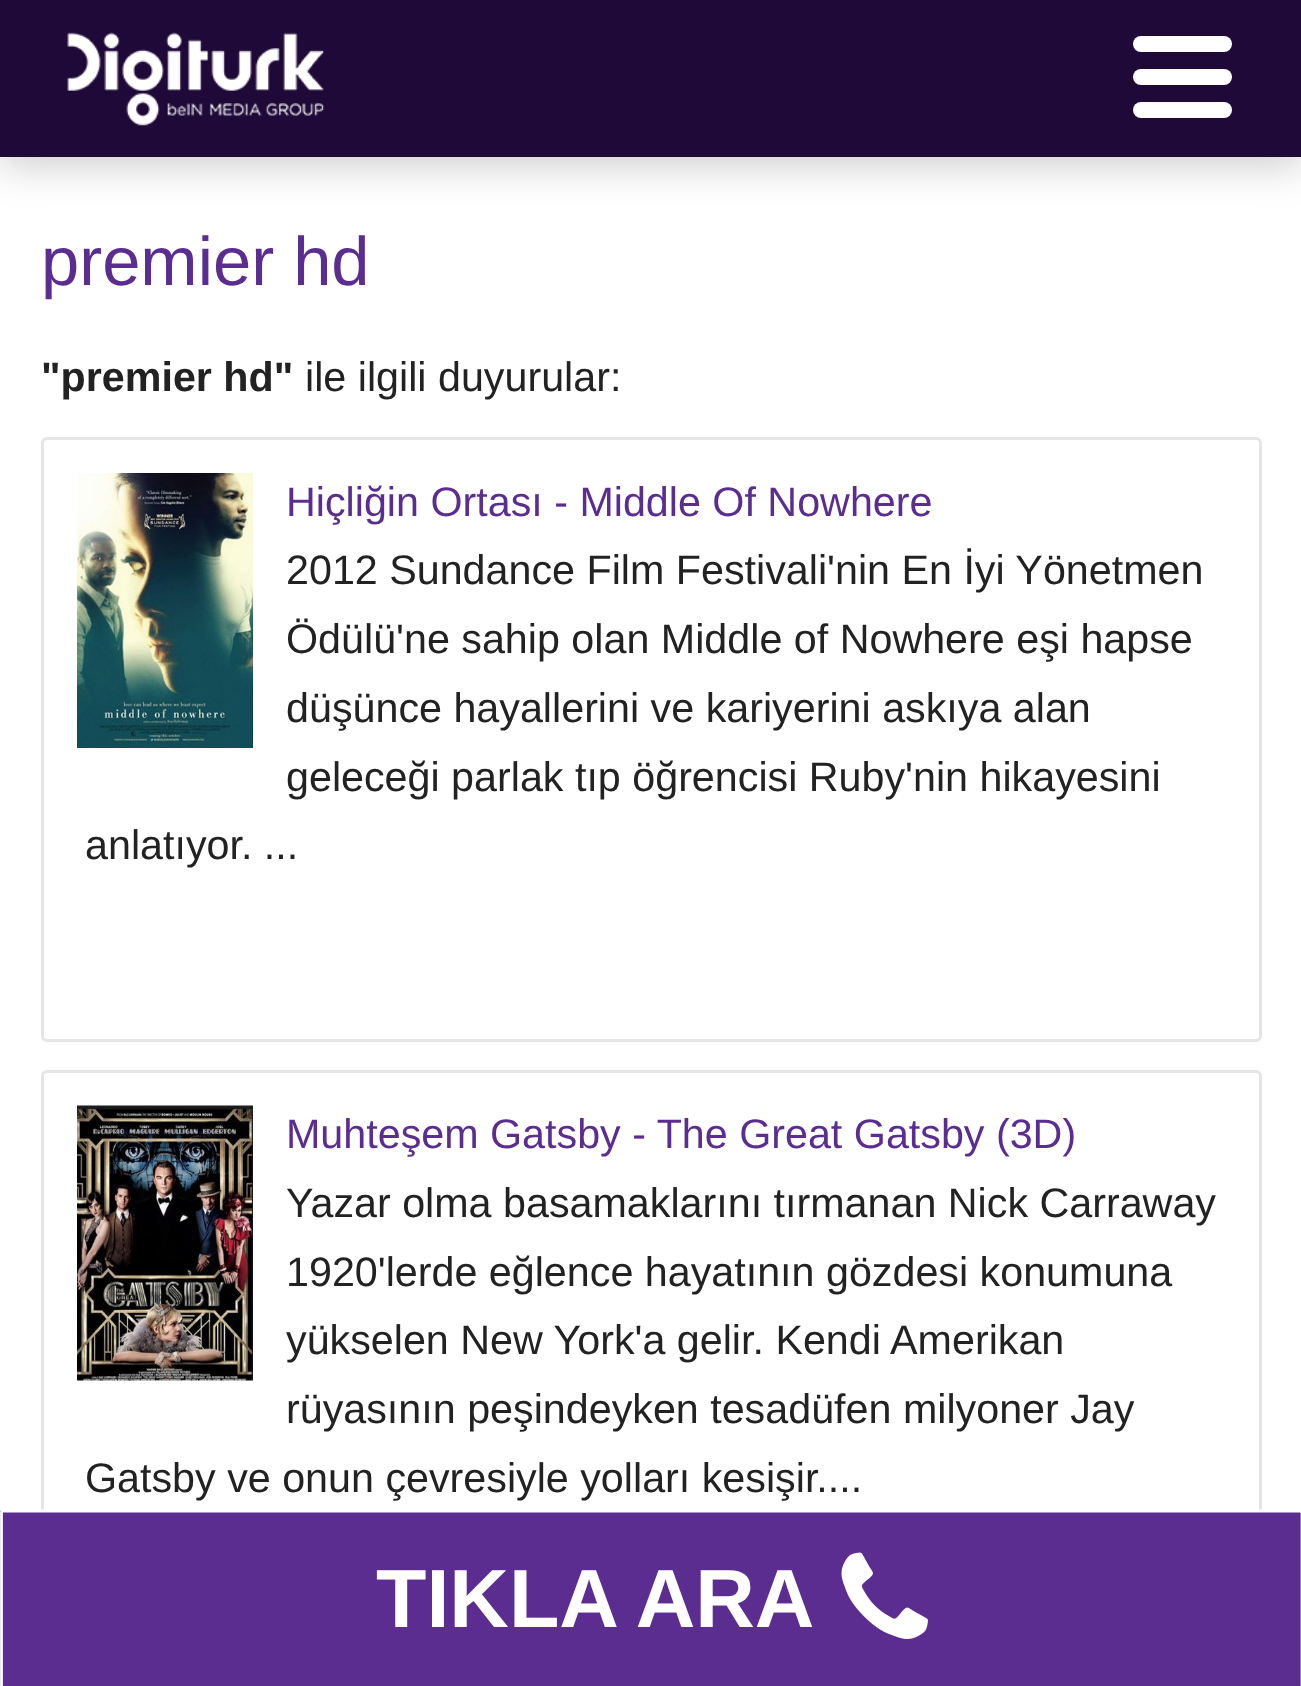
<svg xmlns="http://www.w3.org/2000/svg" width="1301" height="1686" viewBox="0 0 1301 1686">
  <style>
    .t1 { font: 68.75px Liberation Sans; fill: #5b2d90; }
    .t2 { font: bold 41.25px Liberation Sans; fill: #222; }
    .t3 { font: 41.25px Liberation Sans; fill: #222; }
    .t4 { font: 41.25px Liberation Sans; fill: #5b2d90; }
    .t5 { font: bold 82.5px Liberation Sans; fill: #fff; }
  </style>
  <rect width="100%" height="100%" fill="#fff"/>
  <rect x="0" y="8" width="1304" height="157" fill="#00000033" filter="blur(20.5px)"/>
  <rect x="0" y="0" width="1301" height="157" fill="#1e0938"/>
  <image x="67" y="32" width="257" height="94" href="images/1.png"/>
  <rect x="1133" y="36" width="99" height="16" rx="8" fill="#fff"/>
  <rect x="1133" y="69" width="99" height="16" rx="8" fill="#fff"/>
  <rect x="1133" y="102" width="99" height="16" rx="8" fill="#fff"/>
  <text x="41" y="285" class="t1">premier hd</text>
  <text x="41" y="391" class="t2">"premier hd"</text>
  <text x="305" y="391" class="t3">ile ilgili duyurular:</text>
  <rect x="42.5" y="438.5" width="1218" height="602" rx="4.5" fill="none" stroke="#e5e5e5" stroke-width="3"/>
  <image x="77" y="473" width="176" height="275" href="images/2.png"/>
  <text x="286" y="516" class="t4">Hiçliğin Ortası - Middle Of Nowhere</text>
  <text x="286" y="584" class="t3">2012 Sundance Film Festivali'nin En İyi Yönetmen</text>
  <text x="286" y="653" class="t3">Ödülü'ne sahip olan Middle of Nowhere eşi hapse</text>
  <text x="286" y="722" class="t3">düşünce hayallerini ve kariyerini askıya alan</text>
  <text x="286" y="791" class="t3">geleceği parlak tıp öğrencisi Ruby'nin hikayesini</text>
  <text x="85" y="859" class="t3">anlatıyor. ...</text>
  <rect x="42.5" y="1071.5" width="1218" height="602" rx="4.5" fill="none" stroke="#e5e5e5" stroke-width="3"/>
  <image x="77" y="1105" width="176" height="276" href="images/3.png"/>
  <text x="286" y="1148" class="t4">Muhteşem Gatsby - The Great Gatsby (3D)</text>
  <text x="286" y="1217" class="t3">Yazar olma basamaklarını tırmanan Nick Carraway</text>
  <text x="286" y="1286" class="t3">1920'lerde eğlence hayatının gözdesi konumuna</text>
  <text x="286" y="1354" class="t3">yükselen New York'a gelir. Kendi Amerikan</text>
  <text x="286" y="1423" class="t3">rüyasının peşindeyken tesadüfen milyoner Jay</text>
  <text x="85" y="1492" class="t3">Gatsby ve onun çevresiyle yolları kesişir....</text>
  <rect x="0" y="1510" width="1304" height="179" rx="3" fill="#5b2d90"/>
  <path d="M2 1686.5L1.5 1686V1512.5L2 1511.5L2.5 1511H1301L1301.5 1511.5L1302 1512.5V1686L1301.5 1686.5" fill="none" stroke="#fff" stroke-width="2.8"/>
  <text x="376" y="1627" class="t5">TIKLA ARA</text>
  <image x="841" y="1552" width="87" height="87" href="images/4.png"/>
</svg>
